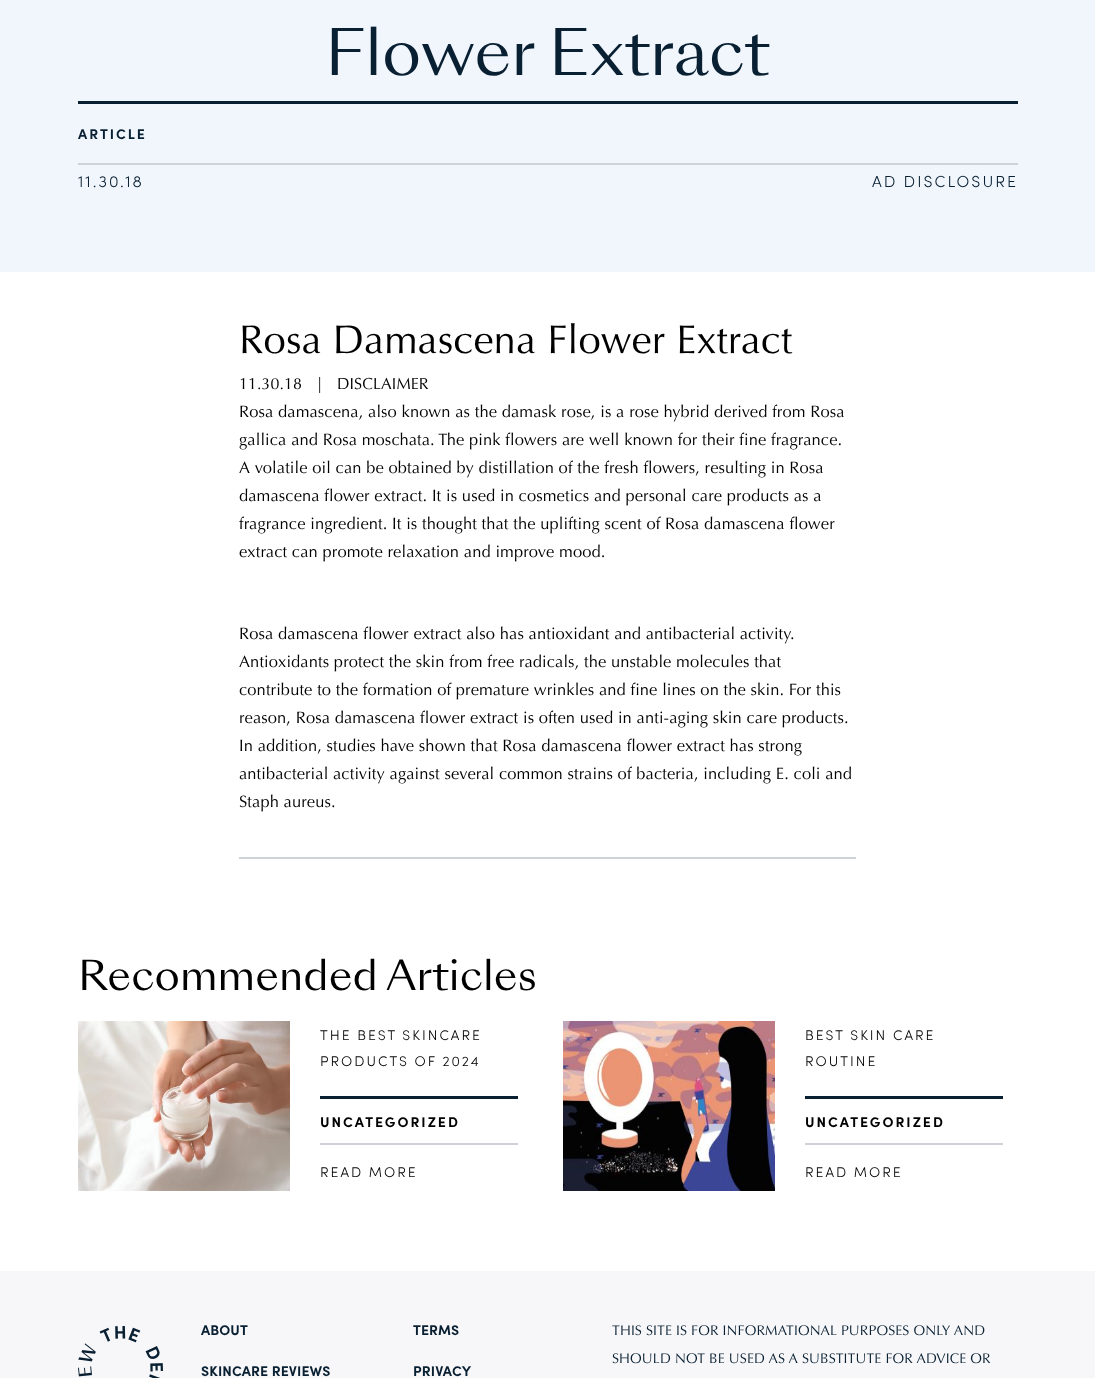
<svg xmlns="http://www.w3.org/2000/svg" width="1095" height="1378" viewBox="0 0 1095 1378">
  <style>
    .t1 { font: 62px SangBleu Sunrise; letter-spacing: 0.1px; fill: #092033; }
    .t2 { font: bold 14px Sofia; letter-spacing: 2px; fill: #092033; }
    .t3 { font: 300 16px Sofia; letter-spacing: 2px; fill: #092033; }
    .t4 { font: 40px Optima; letter-spacing: 0.1px; fill: #000; }
    .t5 { font: 16px Optima; letter-spacing: 0.1px; fill: #000; }
    .t6 { font: 16.5px Optima; letter-spacing: 0.1px; fill: #000; }
    .t7 { font: 40px SangBleu Sunrise; letter-spacing: 0.1px; fill: #000; }
    .t8 { font: 300 14px Sofia; letter-spacing: 2px; fill: #000; }
    .t9 { font: bold 14px Sofia; letter-spacing: 2px; fill: #000; }
    .t10 { font: bold 14px Sofia; letter-spacing: 0.1px; fill: #092033; }
    .t11 { font: 14px Optima; letter-spacing: 0.1px; fill: #092033; }
  </style>
  <rect width="100%" height="100%" fill="#fff"/>
  <rect x="0" y="0" width="1095" height="272" fill="#f1f6fc"/>
  <text x="325" y="75" class="t1">Flower Extract</text>
  <rect x="78" y="101" width="940" height="3" fill="#092033"/>
  <rect x="78" y="163" width="940" height="2" fill="#d0d2d9"/>
  <text x="78" y="139" class="t2">ARTICLE</text>
  <text x="78" y="187" class="t3">11.30.18</text>
  <text x="872" y="187" class="t3">AD DISCLOSURE</text>
  <text x="239" y="353" class="t4">Rosa Damascena Flower Extract</text>
  <text x="239" y="389" class="t5">11.30.18</text>
  <text x="317" y="389" class="t5">|</text>
  <text x="337" y="389" class="t5">DISCLAIMER</text>
  <text x="239" y="417" class="t6">Rosa damascena, also known as the damask rose, is a rose hybrid derived from Rosa</text>
  <text x="239" y="445" class="t6">gallica and Rosa moschata. The pink flowers are well known for their fine fragrance.</text>
  <text x="239" y="473" class="t6">A volatile oil can be obtained by distillation of the fresh flowers, resulting in Rosa</text>
  <text x="239" y="501" class="t6">damascena flower extract. It is used in cosmetics and personal care products as a</text>
  <text x="239" y="529" class="t6">fragrance ingredient. It is thought that the uplifting scent of Rosa damascena flower</text>
  <text x="239" y="557" class="t6">extract can promote relaxation and improve mood.</text>
  <rect x="239" y="857" width="617" height="2" fill="#d0d2d9"/>
  <text x="239" y="639" class="t6">Rosa damascena flower extract also has antioxidant and antibacterial activity.</text>
  <text x="239" y="667" class="t6">Antioxidants protect the skin from free radicals, the unstable molecules that</text>
  <text x="239" y="695" class="t6">contribute to the formation of premature wrinkles and fine lines on the skin. For this</text>
  <text x="239" y="723" class="t6">reason, Rosa damascena flower extract is often used in anti-aging skin care products.</text>
  <text x="239" y="751" class="t6">In addition, studies have shown that Rosa damascena flower extract has strong</text>
  <text x="239" y="779" class="t6">antibacterial activity against several common strains of bacteria, including E. coli and</text>
  <text x="239" y="807" class="t6">Staph aureus.</text>
  <text x="78" y="990" class="t7">Recommended Articles</text>
  <image x="78" y="1021" width="212" height="170" href="images/1.png"/>
  <text x="320" y="1040" class="t8">THE BEST SKINCARE</text>
  <text x="320" y="1066" class="t8">PRODUCTS OF 2024</text>
  <rect x="320" y="1096" width="198" height="3" fill="#092033"/>
  <rect x="320" y="1143" width="198" height="2" fill="#d0d2d9"/>
  <text x="320" y="1127" class="t9">UNCATEGORIZED</text>
  <text x="320" y="1177" class="t8">READ MORE</text>
  <image x="563" y="1021" width="212" height="170" href="images/2.png"/>
  <text x="805" y="1040" class="t8">BEST SKIN CARE</text>
  <text x="805" y="1066" class="t8">ROUTINE</text>
  <rect x="805" y="1096" width="198" height="3" fill="#092033"/>
  <rect x="805" y="1143" width="198" height="2" fill="#d0d2d9"/>
  <text x="805" y="1127" class="t9">UNCATEGORIZED</text>
  <text x="805" y="1177" class="t8">READ MORE</text>
  <rect x="0" y="1271" width="1095" height="107" fill="#f7f7f9"/>
  <image x="78" y="1326" width="85" height="52" href="images/3.png"/>
  <text x="201" y="1335" class="t10">ABOUT</text>
  <text x="413" y="1335" class="t10">TERMS</text>
  <text x="201" y="1376" class="t10">SKINCARE REVIEWS</text>
  <text x="413" y="1376" class="t10">PRIVACY</text>
  <text x="612" y="1335" class="t11">THIS SITE IS FOR INFORMATIONAL PURPOSES ONLY AND</text>
  <text x="612" y="1363" class="t11">SHOULD NOT BE USED AS A SUBSTITUTE FOR ADVICE OR</text>
</svg>
